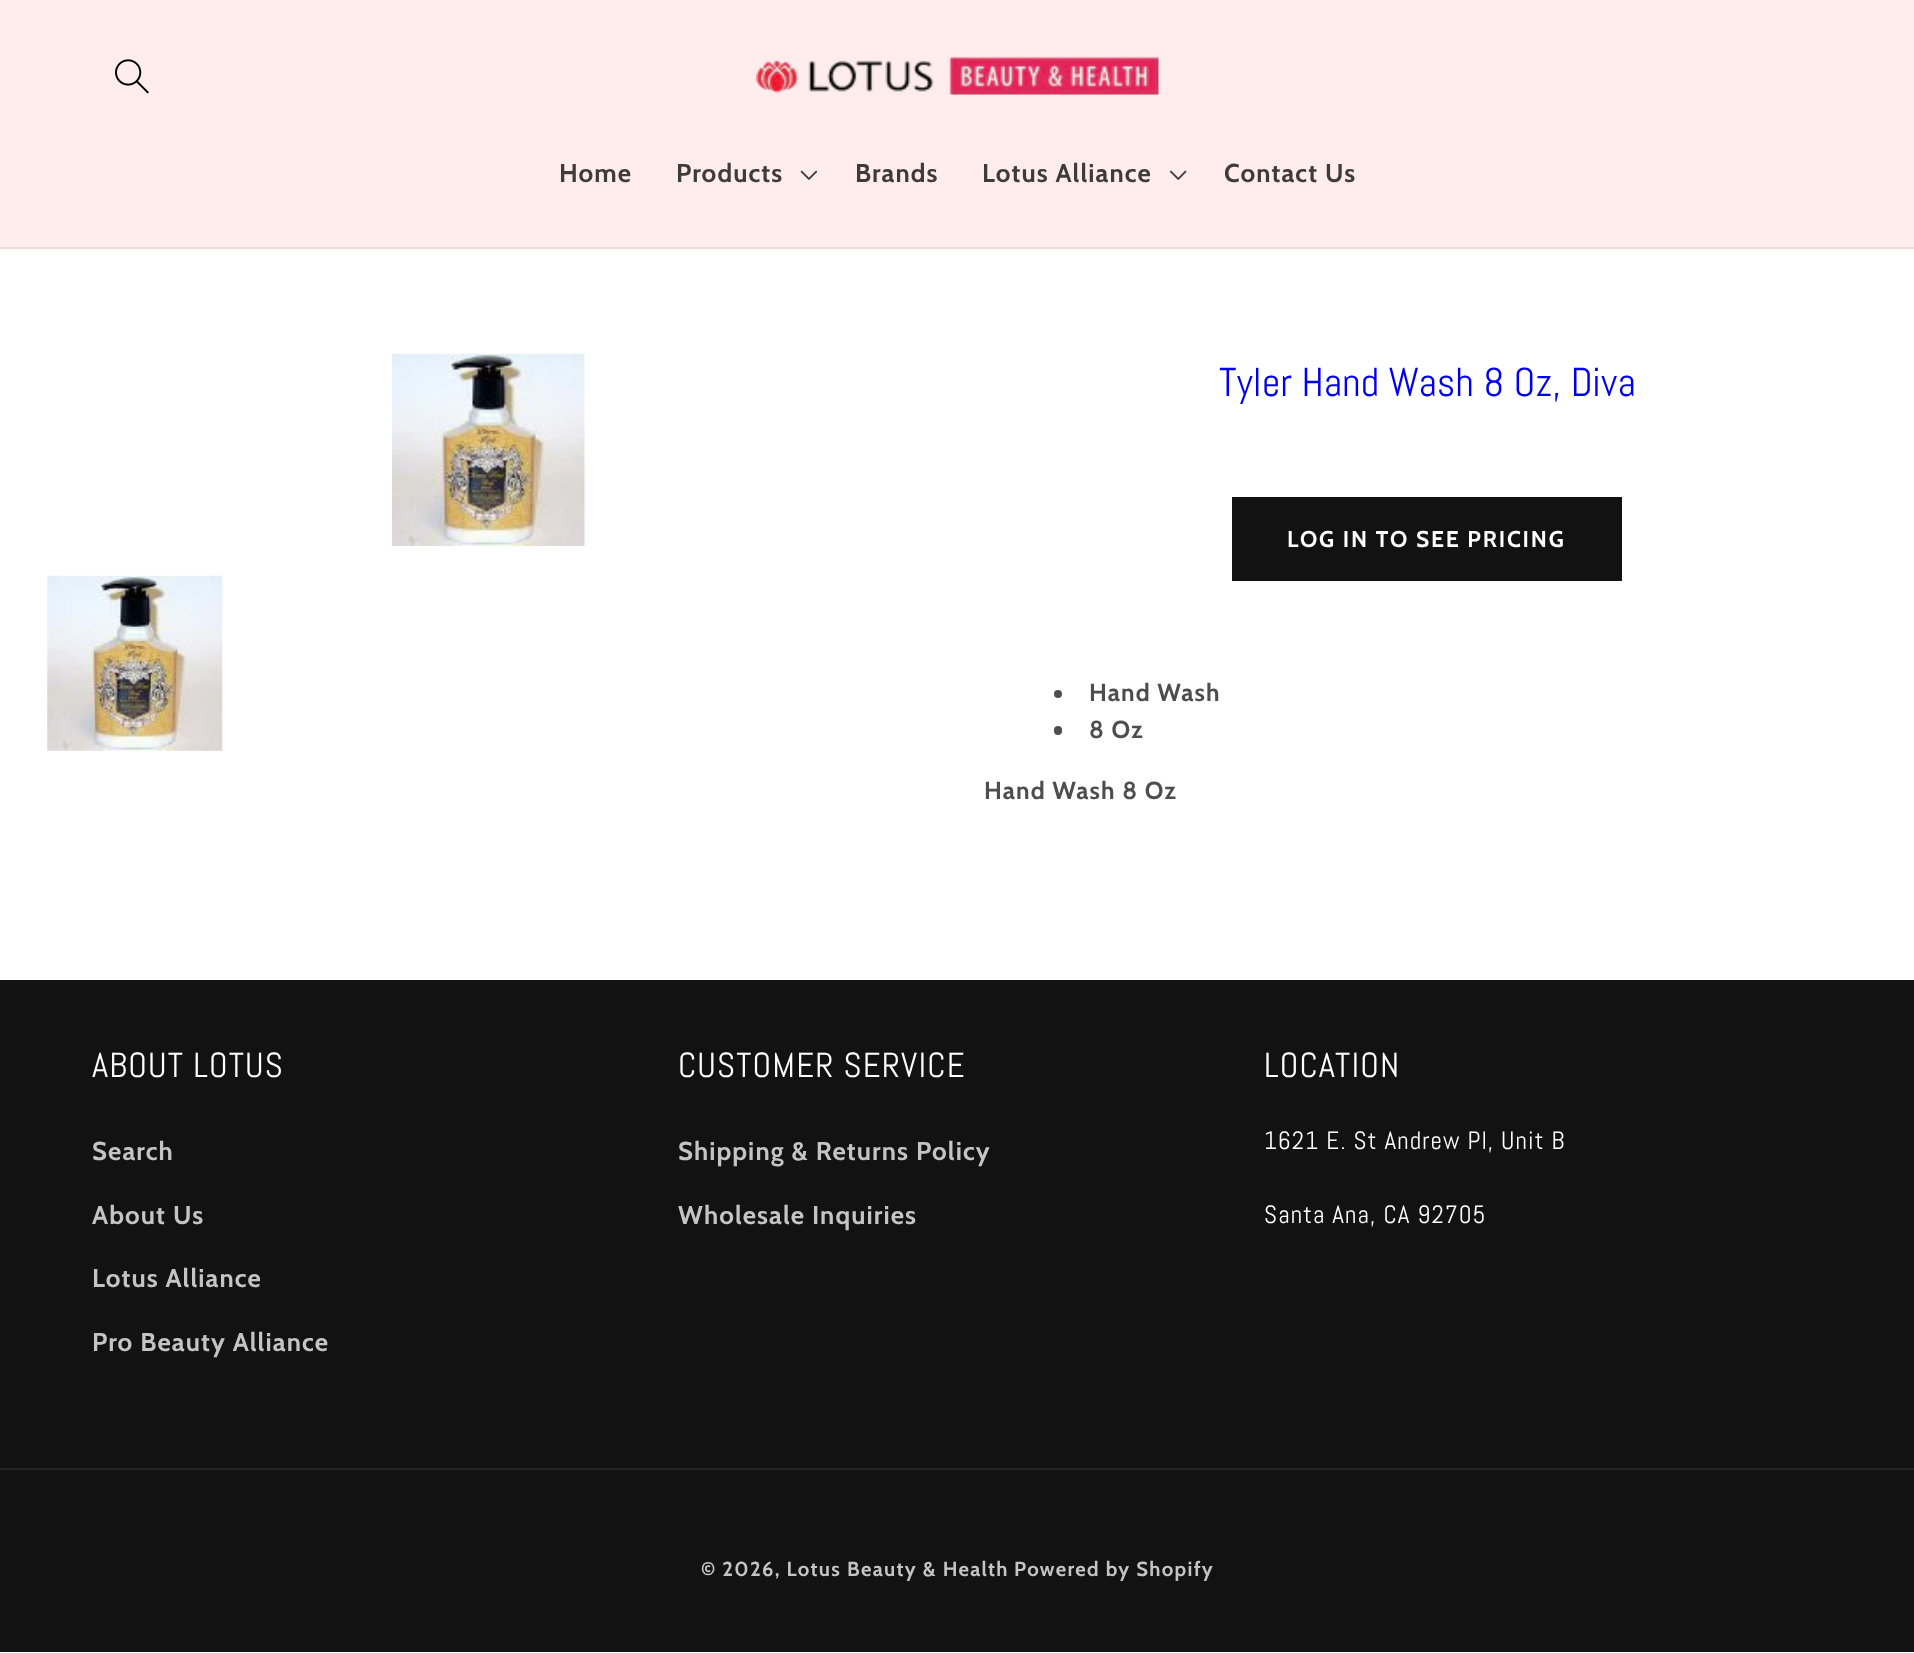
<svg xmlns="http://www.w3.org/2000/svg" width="1914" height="1653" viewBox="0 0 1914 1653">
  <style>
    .t1 { font: bold 25.75px Cabin; letter-spacing: 1.1px; fill: #403b3b; }
    .t2 { font: 40.25px Abel; letter-spacing: 0.2px; fill: #00e; }
    .t3 { font: bold 22.75px Cabin; letter-spacing: 1.8px; fill: #fff; }
    .t4 { font: bold 24.5px Cabin; letter-spacing: 1.1px; fill: #4d4d4d; }
    .t5 { font: 34.75px Abel; letter-spacing: 1.15px; fill: #fff; }
    .t6 { font: bold 25.75px Cabin; letter-spacing: 1.1px; fill: #c4c4c4; }
    .t7 { font: 25px Abel; letter-spacing: 1.15px; fill: #fff; }
    .t8 { font: bold 20.25px Cabin; letter-spacing: 1.3px; fill: #c4c4c4; }
  </style>
  <rect width="100%" height="100%" fill="#fff"/>
  <rect x="0" y="0" width="1914" height="247" fill="#ffeded"/>
  <rect x="0" y="247" width="1914" height="2" fill="#ebdada"/>
  <image x="115" y="59" width="34" height="35" href="images/1.png"/>
  <image x="756" y="56" width="403" height="39" href="images/2.png"/>
  <text x="559" y="182" class="t1">Home</text>
  <text x="676" y="182" class="t1">Products</text>
  <image x="800" y="170" width="17" height="10" href="images/3.png"/>
  <text x="855" y="182" class="t1">Brands</text>
  <text x="982" y="182" class="t1">Lotus Alliance</text>
  <image x="1170" y="170" width="17" height="10" href="images/4.png"/>
  <text x="1224" y="182" class="t1">Contact Us</text>
  <image x="392" y="353" width="193" height="193" href="images/5.png"/>
  <image x="47" y="575" width="176" height="176" href="images/6.png"/>
  <text x="1219" y="396" class="t2">Tyler Hand Wash 8 Oz, Diva</text>
  <rect x="1232" y="497" width="390" height="84" fill="#121212"/>
  <text x="1287" y="547" class="t3">LOG IN TO SEE PRICING</text>
  <circle cx="1058" cy="694" r="4" fill="#4d4d4d"/>
  <text x="1089" y="701" class="t4">Hand Wash</text>
  <rect x="1054" y="726" width="8" height="9" rx="4" fill="#4d4d4d"/>
  <text x="1089" y="738" class="t4">8 Oz</text>
  <text x="984" y="799" class="t4">Hand Wash 8 Oz</text>
  <rect x="0" y="980" width="1914" height="672" fill="#121212"/>
  <text x="92" y="1077" class="t5">ABOUT LOTUS</text>
  <text x="92" y="1160" class="t6">Search</text>
  <text x="92" y="1224" class="t6">About Us</text>
  <text x="92" y="1287" class="t6">Lotus Alliance</text>
  <text x="92" y="1351" class="t6">Pro Beauty Alliance</text>
  <text x="678" y="1077" class="t5">CUSTOMER SERVICE</text>
  <text x="678" y="1160" class="t6">Shipping &amp; Returns Policy</text>
  <text x="678" y="1224" class="t6">Wholesale Inquiries</text>
  <text x="1264" y="1077" class="t5">LOCATION</text>
  <text x="1264" y="1149" class="t7">1621 E. St Andrew Pl, Unit B</text>
  <text x="1264" y="1223" class="t7">Santa Ana, CA 92705</text>
  <rect x="0" y="1468" width="1914" height="2" fill="#252525"/>
  <text x="701" y="1576" class="t8">© 2026, Lotus Beauty &amp; Health</text>
  <text x="1014" y="1576" class="t8">Powered by Shopify</text>
</svg>
